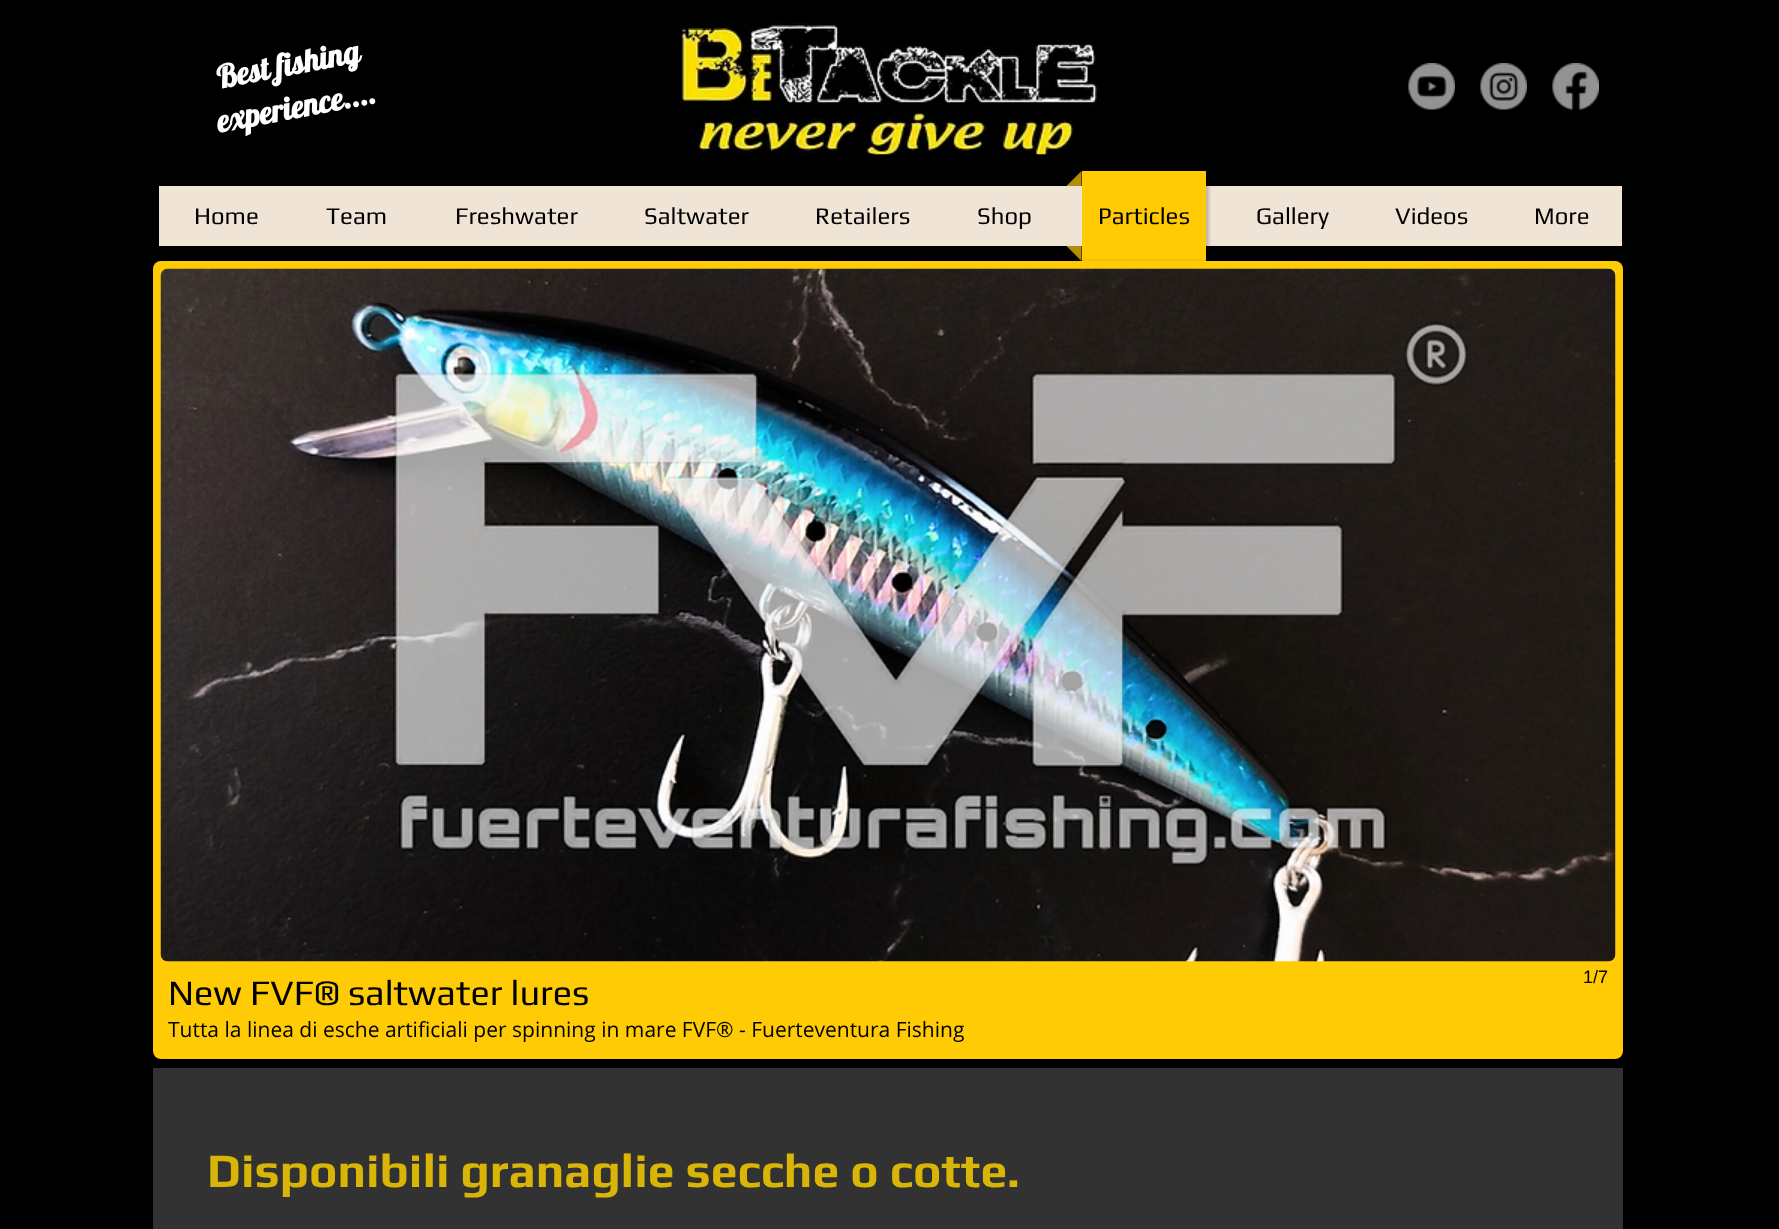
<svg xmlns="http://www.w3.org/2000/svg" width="1779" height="1229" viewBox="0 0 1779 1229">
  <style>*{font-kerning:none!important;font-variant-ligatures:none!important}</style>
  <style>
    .t1 { font: bold 31.5px Lobster; fill: #fff; }
    .t2 { font: 24px Play; fill: #000; }
    .t3 { font: 18px Liberation Sans; fill: #000; }
    .t4 { font: 36px Play; fill: #000; }
    .t5 { font: 21px Open Sans; fill: #000; }
    .t6 { font: bold 48px Play; fill: #d8b506; }
  </style>
  <rect width="100%" height="100%" fill="#000"/>
  <text x="219" y="89" transform="rotate(-10.7 219 89)" class="t1">Best fishing</text>
  <text x="219" y="133" transform="rotate(-10.7 219 133)" class="t1">experience....</text>
  <image x="675" y="23" width="426" height="132" href="images/1.png"/>
  <image x="1408" y="63" width="47" height="47" href="images/2.png"/>
  <image x="1480" y="63" width="47" height="47" href="images/3.png"/>
  <image x="1552" y="63" width="47" height="47" href="images/4.png"/>
  <rect x="159" y="186" width="1463" height="60" fill="#efe4d5"/>
  <text x="194" y="224" class="t2">Home</text>
  <text x="326" y="224" class="t2">Team</text>
  <text x="455" y="224" class="t2">Freshwater</text>
  <text x="644" y="224" class="t2">Saltwater</text>
  <text x="815" y="224" class="t2">Retailers</text>
  <text x="977" y="224" class="t2">Shop</text>
  <rect x="1085" y="171" width="124" height="90" fill="#00000033" filter="blur(1.5px)"/>
  <path d="M1081.5 186H1066.5L1081.5 171Z" fill="#b38e04"/>
  <rect x="1082" y="171" width="124" height="90" fill="#ffcb05"/>
  <path d="M1066.5 246H1081.5V261Z" fill="#b38e04"/>
  <text x="1098" y="224" class="t2">Particles</text>
  <text x="1256" y="224" class="t2">Gallery</text>
  <text x="1395" y="224" class="t2">Videos</text>
  <text x="1534" y="224" class="t2">More</text>
  <rect x="153" y="263" width="1470" height="798" rx="8" fill="#00000080" filter="blur(2px)"/>
  <rect x="153" y="261" width="1470" height="798" rx="8" fill="#ffcb05"/>
  <text x="1583" y="983" class="t3">1/7</text>
  <image x="160" y="268" width="1456" height="694" href="images/5.png"/>
  <text x="168" y="1005" class="t4">New FVF® saltwater lures</text>
  <text x="168" y="1037" class="t5">Tutta la linea di esche artificiali per spinning in mare FVF® - Fuerteventura Fishing</text>
  <rect x="153" y="1068" width="1470" height="161" fill="#323232"/>
  <text x="207" y="1187" class="t6">Disponibili granaglie secche o cotte.</text>
</svg>
